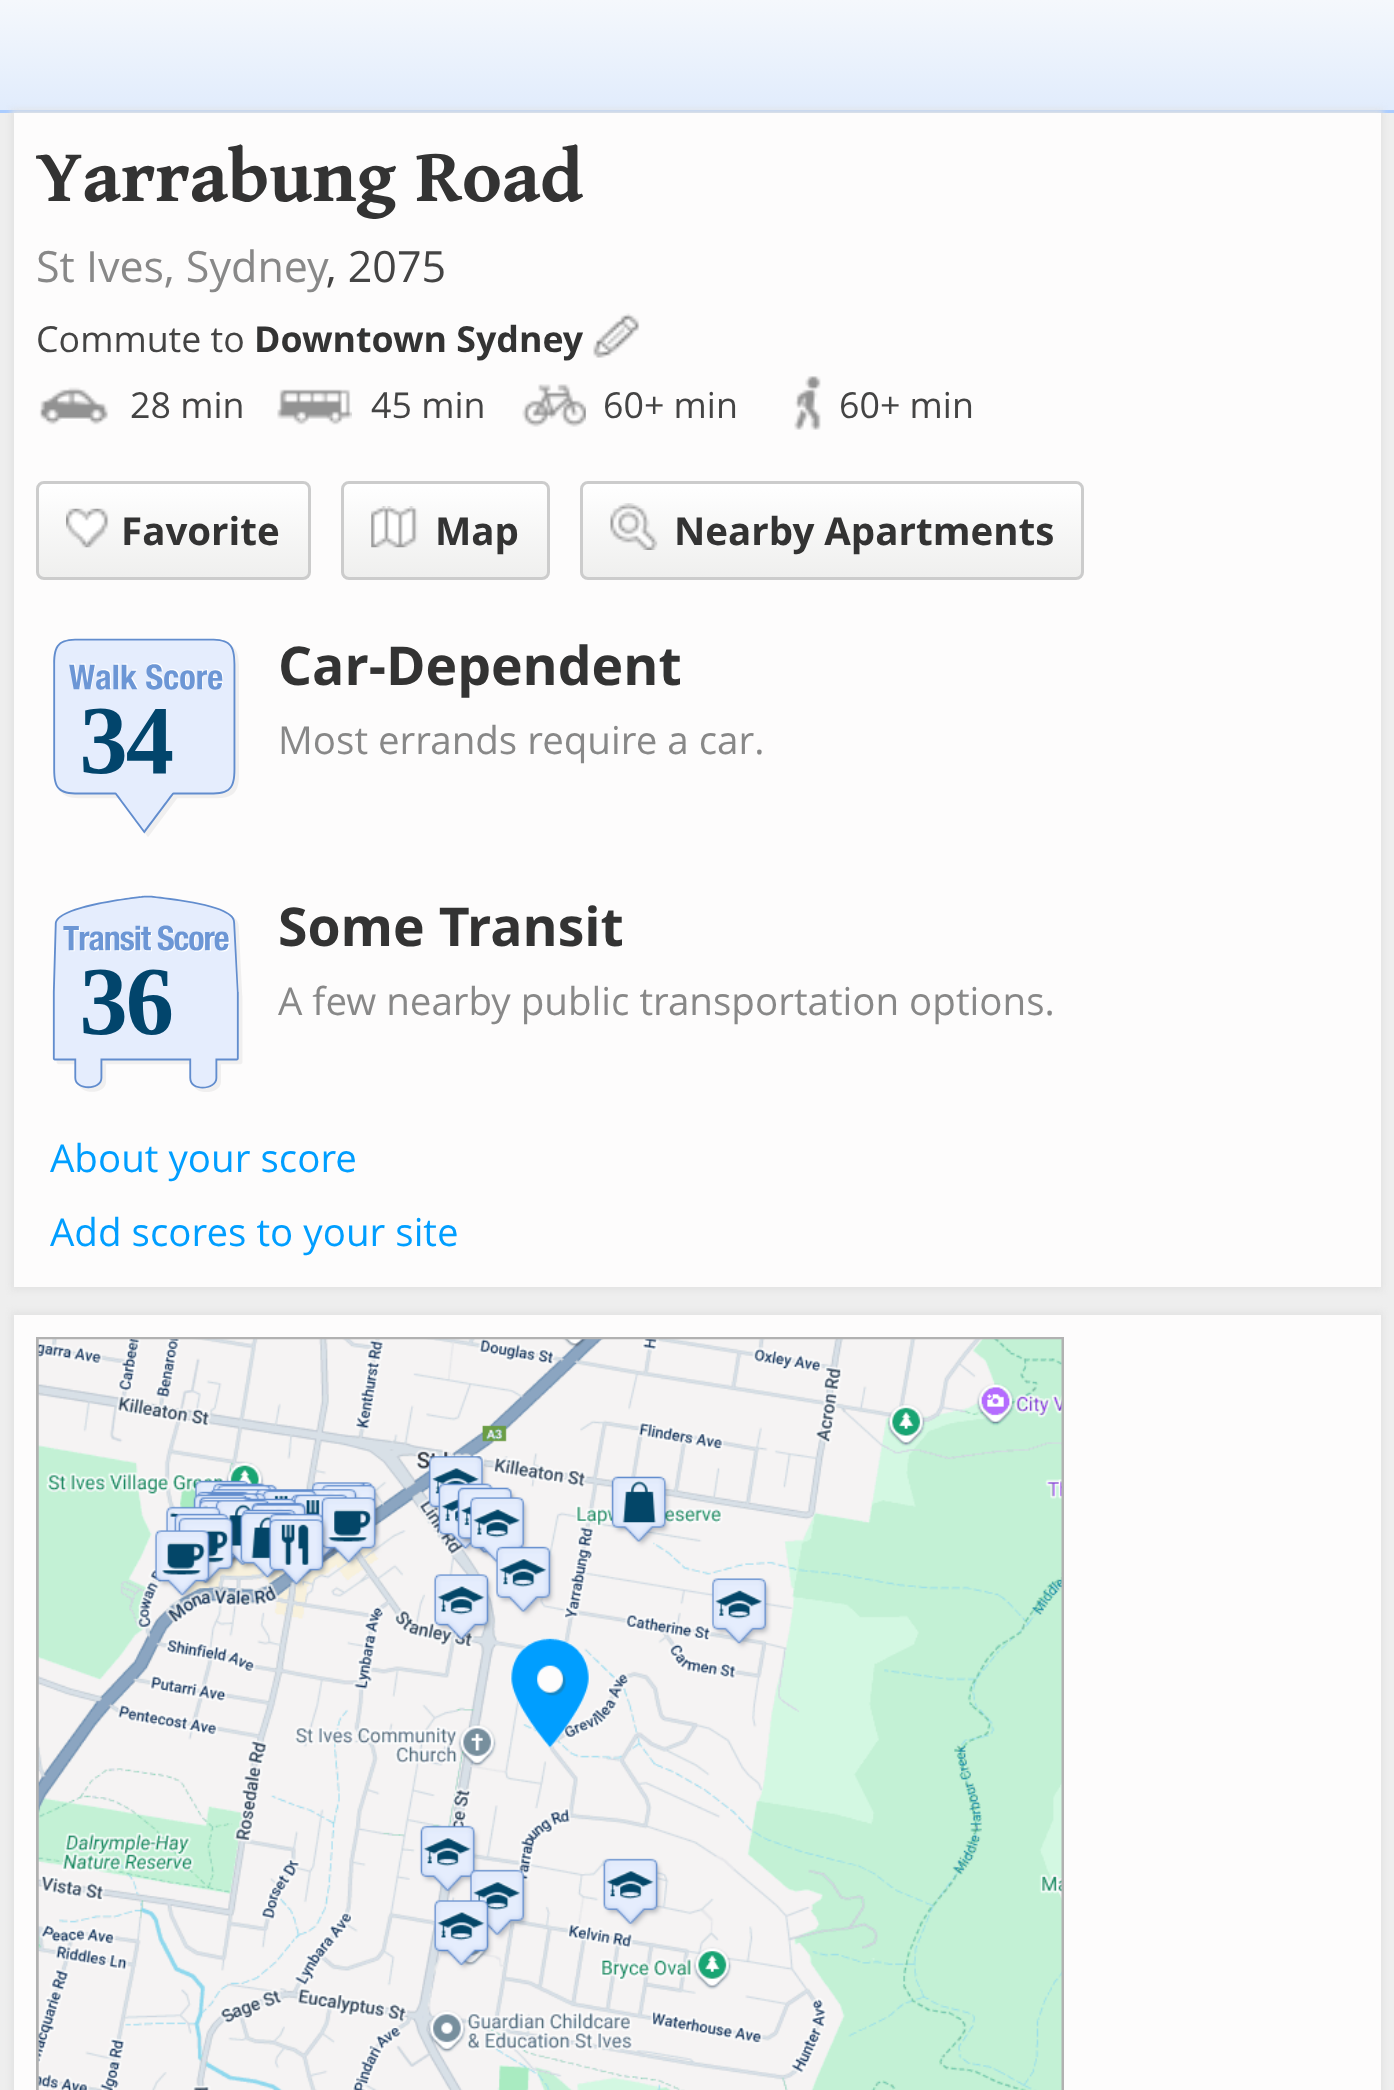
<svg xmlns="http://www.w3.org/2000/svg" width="1394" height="2090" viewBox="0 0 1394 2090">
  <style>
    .t1 { font: bold 75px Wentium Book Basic; fill: #333; }
    .t2 { font: 43px Open Sans; fill: #888; }
    .t3 { font: 43px Open Sans; fill: #444; }
    .t4 { font: 35.75px Open Sans; fill: #444; }
    .t5 { font: bold 35.75px Open Sans; fill: #333; }
    .t6 { font: bold 38.5px Open Sans; fill: #333; }
    .t7 { font: bold 53.5px Open Sans; fill: #333; }
    .t8 { font: 38.5px Open Sans; fill: #888; }
    .t9 { font: 38.5px Open Sans; fill: #009eff; }
  </style>
  <defs>
    <linearGradient id="g1" gradientUnits="userSpaceOnUse" x1="697" y1="0" x2="697" y2="110"><stop offset="0" stop-color="#f5f8fc"/><stop offset="1" stop-color="#e1ecfc"/></linearGradient>
    <clipPath id="clip1"><rect x="36" y="481" width="275" height="99" rx="8"/></clipPath>
    <linearGradient id="g2" gradientUnits="userSpaceOnUse" x1="173" y1="484" x2="173" y2="578"><stop offset="0" stop-color="#fff"/><stop offset="1" stop-color="#efefee"/></linearGradient>
    <clipPath id="clip2"><rect x="341" y="481" width="209" height="99" rx="8"/></clipPath>
    <linearGradient id="g3" gradientUnits="userSpaceOnUse" x1="446" y1="484" x2="446" y2="578"><stop offset="0" stop-color="#fff"/><stop offset="1" stop-color="#efefee"/></linearGradient>
    <clipPath id="clip3"><rect x="580" y="481" width="504" height="99" rx="8"/></clipPath>
    <linearGradient id="g4" gradientUnits="userSpaceOnUse" x1="832" y1="484" x2="832" y2="578"><stop offset="0" stop-color="#fff"/><stop offset="1" stop-color="#efefee"/></linearGradient>
  </defs>
  <rect width="100%" height="100%" fill="#eee"/>
  <rect x="0" y="0" width="1394" height="110" fill="url(#g1)"/>
  <rect x="0" y="110" width="1394" height="3" fill="#acf"/>
  <rect x="11" y="110" width="1372" height="1180" fill="#e2e2e2" filter="blur(3px)"/>
  <rect x="14" y="113" width="1367" height="1174" fill="#fdfcfc"/>
  <text x="36" y="201" class="t1">Yarrabung Road</text>
  <text x="36" y="282" class="t2">St Ives, Sydney</text>
  <text x="326" y="282" class="t3">, 2075</text>
  <text x="36" y="352" class="t4">Commute to</text>
  <text x="254" y="352" class="t5">Downtown Sydney</text>
  <image x="593" y="313" width="47" height="45" href="images/1.png"/>
  <image x="39" y="387" width="70" height="38" href="images/2.png"/>
  <text x="130" y="418" class="t4">28 min</text>
  <image x="277" y="389" width="75" height="36" href="images/3.png"/>
  <text x="371" y="418" class="t4">45 min</text>
  <image x="522" y="384" width="64" height="43" href="images/4.png"/>
  <text x="603" y="418" class="t4">60+ min</text>
  <image x="794" y="376" width="27" height="54" href="images/5.png"/>
  <text x="839" y="418" class="t4">60+ min</text>
  <g clip-path="url(#clip1)">
    <rect x="36" y="484" width="275" height="94" fill="url(#g2)"/>
  </g>
  <rect x="37.5" y="482.5" width="272" height="96" rx="6.5" fill="none" stroke="#ccc" stroke-width="3"/>
  <image x="66" y="508" width="43" height="40" href="images/6.png"/>
  <text x="121" y="545" class="t6">Favorite</text>
  <g clip-path="url(#clip2)">
    <rect x="341" y="484" width="209" height="94" fill="url(#g3)"/>
  </g>
  <rect x="342.5" y="482.5" width="206" height="96" rx="6.5" fill="none" stroke="#ccc" stroke-width="3"/>
  <image x="371" y="506" width="47" height="42" href="images/7.png"/>
  <text x="435" y="545" class="t6">Map</text>
  <g clip-path="url(#clip3)">
    <rect x="580" y="484" width="504" height="94" fill="url(#g4)"/>
  </g>
  <rect x="581.5" y="482.5" width="501" height="96" rx="6.5" fill="none" stroke="#ccc" stroke-width="3"/>
  <image x="610" y="503" width="48" height="47" href="images/8.png"/>
  <text x="674" y="545" class="t6">Nearby Apartments</text>
  <image x="53" y="638" width="186" height="199" href="images/9.png"/>
  <text x="278" y="685" class="t7">Car-Dependent</text>
  <text x="278" y="754" class="t8">Most errands require a car.</text>
  <image x="52" y="895" width="191" height="197" href="images/10.png"/>
  <text x="278" y="946" class="t7">Some Transit</text>
  <text x="278" y="1015" class="t8">A few nearby public transportation options.</text>
  <text x="50" y="1172" class="t9">About your score</text>
  <text x="50" y="1246" class="t9">Add scores to your site</text>
  <rect x="11" y="1312" width="1372" height="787" fill="#e2e2e2" filter="blur(3px)"/>
  <rect x="14" y="1315" width="1367" height="775" fill="#fdfcfc"/>
  <rect x="37.5" y="1338.5" width="1025" height="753" fill="none" stroke="#b1b1b1" stroke-width="3"/>
  <image x="38" y="1339" width="1024" height="751" href="images/11.png"/>
  <image x="510" y="1638" width="80" height="110" href="images/12.png"/>
</svg>
